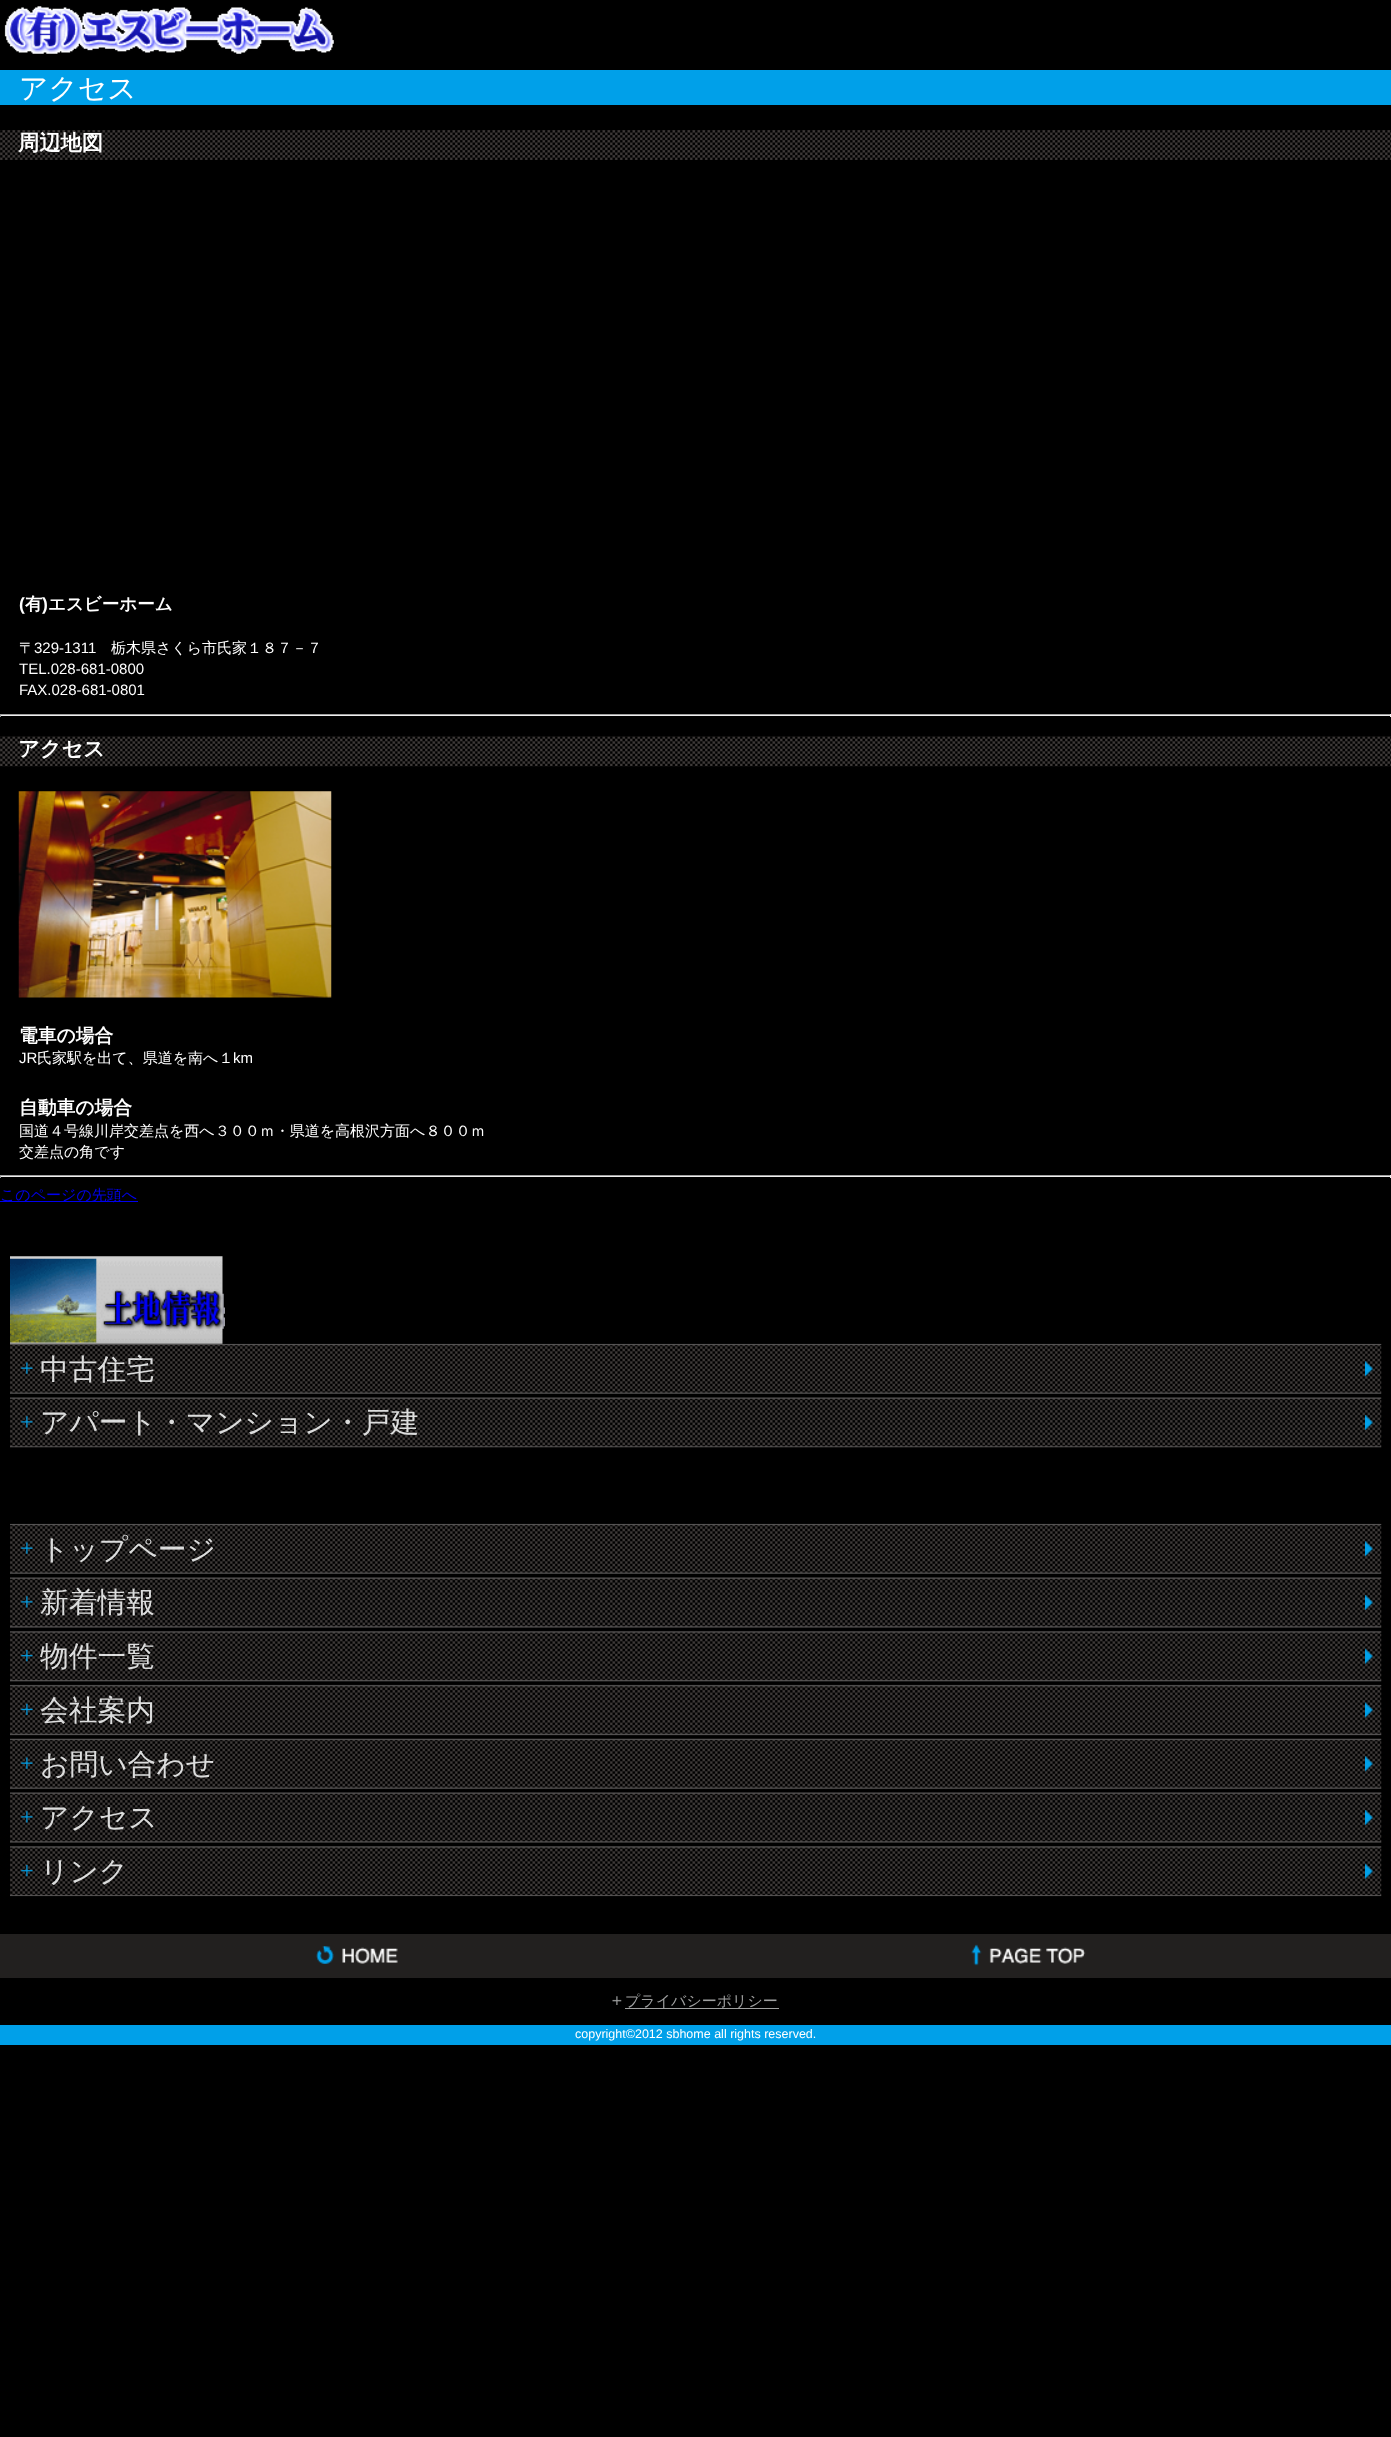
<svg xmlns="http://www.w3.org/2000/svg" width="1391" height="2437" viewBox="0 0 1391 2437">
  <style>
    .t1 { font: 500 28.75px WenQuanYi Zen Hei; fill: #fff; }
    .t2 { font: bold 21.25px WenQuanYi Zen Hei; fill: #fff; }
    .t3 { font: bold 17.5px Liberation Sans; fill: #fff; }
    .t4 { font: bold 17.5px WenQuanYi Zen Hei; fill: #fff; }
    .t5 { font: 500 15px WenQuanYi Zen Hei; fill: #fff; }
    .t6 { font: 15px Liberation Sans; fill: #fff; }
    .t7 { font: bold 18.75px WenQuanYi Zen Hei; fill: #fff; }
    .t8 { font: 500 15px WenQuanYi Zen Hei; fill: #00e; }
    .t9 { font: 500 28.75px WenQuanYi Zen Hei; fill: #dcdddd; }
    .t10 { font: 500 15px WenQuanYi Zen Hei; fill: #9fa0a0; }
    .t11 { font: 12.5px Liberation Sans; fill: #fff; }
  </style>
  <rect width="100%" height="100%" fill="#000"/>
  <image x="4" y="6" width="330" height="48" href="images/1.png"/>
  <rect x="0" y="70" width="1391" height="35" fill="#00a0e9"/>
  <text x="19" y="98" class="t1">アクセス</text>
  <image x="0" y="130" width="1391" height="30" href="images/2.png"/>
  <text x="18" y="150" class="t2">周辺地図</text>
  <text x="19" y="610" class="t3">(</text>
  <text x="25" y="610" class="t4">有</text>
  <text x="42" y="610" class="t3">)</text>
  <text x="48" y="610" class="t4">エスビーホーム</text>
  <text x="19" y="653" class="t5">〒</text>
  <text x="34" y="653" class="t6">329-1311</text>
  <text x="111" y="653" class="t5">栃木県さくら市氏家１８７－７</text>
  <text x="19" y="674" class="t6">TEL.028-681-0800</text>
  <text x="19" y="695" class="t6">FAX.028-681-0801</text>
  <rect x="0" y="714" width="1391" height="1" fill="#9f9f9f"/>
  <rect x="1390" y="714" width="1" height="3" fill="#eee"/>
  <rect x="0" y="715" width="1391" height="1" fill="#eee"/>
  <rect x="0" y="714" width="1" height="3" fill="#9f9f9f"/>
  <image x="0" y="736" width="1391" height="31" href="images/3.png"/>
  <text x="18" y="756" class="t2">アクセス</text>
  <image x="18" y="791" width="314" height="207" href="images/4.png"/>
  <text x="19" y="1042" class="t7">電車の場合</text>
  <text x="19" y="1063" class="t6">JR</text>
  <text x="37" y="1063" class="t5">氏家駅を出て、県道を南へ１</text>
  <text x="233" y="1063" class="t6">km</text>
  <text x="19" y="1114" class="t7">自動車の場合</text>
  <text x="19" y="1136" class="t5">国道４号線川岸交差点を西へ３００ｍ・県道を高根沢方面へ８００ｍ</text>
  <text x="19" y="1157" class="t5">交差点の角です</text>
  <rect x="0" y="1175" width="1391" height="1" fill="#9f9f9f"/>
  <rect x="1390" y="1175" width="1" height="3" fill="#eee"/>
  <rect x="0" y="1176" width="1391" height="1" fill="#eee"/>
  <rect x="0" y="1175" width="1" height="3" fill="#9f9f9f"/>
  <rect x="0" y="1201" width="138" height="1" fill="#00e"/>
  <text x="0" y="1200" class="t8">このページの先頭へ</text>
  <image x="10" y="1343" width="1372" height="105" href="images/6.png"/>
  <image x="10" y="1256" width="215" height="88" href="images/5.png"/>
  <image x="21" y="1362" width="12" height="12" href="images/7.png"/>
  <image x="1365" y="1361" width="8" height="16" href="images/8.png"/>
  <text x="40" y="1379" class="t9">中古住宅</text>
  <image x="21" y="1416" width="12" height="12" href="images/9.png"/>
  <image x="1365" y="1415" width="8" height="15" href="images/10.png"/>
  <text x="40" y="1432" class="t9">アパート・マンション・戸建</text>
  <image x="10" y="1523" width="1372" height="374" href="images/11.png"/>
  <image x="21" y="1542" width="12" height="12" href="images/7.png"/>
  <image x="1365" y="1541" width="8" height="16" href="images/8.png"/>
  <text x="40" y="1559" class="t9">トップページ</text>
  <image x="21" y="1596" width="12" height="12" href="images/9.png"/>
  <image x="1365" y="1595" width="8" height="15" href="images/10.png"/>
  <text x="40" y="1612" class="t9">新着情報</text>
  <image x="21" y="1650" width="12" height="12" href="images/12.png"/>
  <image x="1365" y="1648" width="8" height="16" href="images/13.png"/>
  <text x="40" y="1666" class="t9">物件一覧</text>
  <image x="21" y="1703" width="12" height="12" href="images/14.png"/>
  <image x="1365" y="1702" width="8" height="16" href="images/15.png"/>
  <text x="40" y="1720" class="t9">会社案内</text>
  <image x="21" y="1757" width="12" height="12" href="images/7.png"/>
  <image x="1365" y="1756" width="8" height="16" href="images/8.png"/>
  <text x="40" y="1774" class="t9">お問い合わせ</text>
  <image x="21" y="1811" width="12" height="12" href="images/9.png"/>
  <image x="1365" y="1810" width="8" height="15" href="images/10.png"/>
  <text x="40" y="1827" class="t9">アクセス</text>
  <image x="21" y="1865" width="12" height="12" href="images/12.png"/>
  <image x="1365" y="1863" width="8" height="16" href="images/13.png"/>
  <text x="40" y="1881" class="t9">リンク</text>
  <rect x="0" y="1934" width="1391" height="44" fill="#22201f"/>
  <image x="316" y="1946" width="82" height="18" href="images/16.png"/>
  <image x="971" y="1944" width="115" height="22" href="images/17.png"/>
  <image x="612" y="1996" width="10" height="9" href="images/18.png"/>
  <rect x="625" y="2008" width="154" height="1" fill="#9fa0a0"/>
  <text x="625" y="2006" class="t10">プライバシーポリシー</text>
  <rect x="0" y="2025" width="1391" height="20" fill="#00a0e9"/>
  <text x="575" y="2038" class="t11">copyright©2012 sbhome all rights reserved.</text>
</svg>
